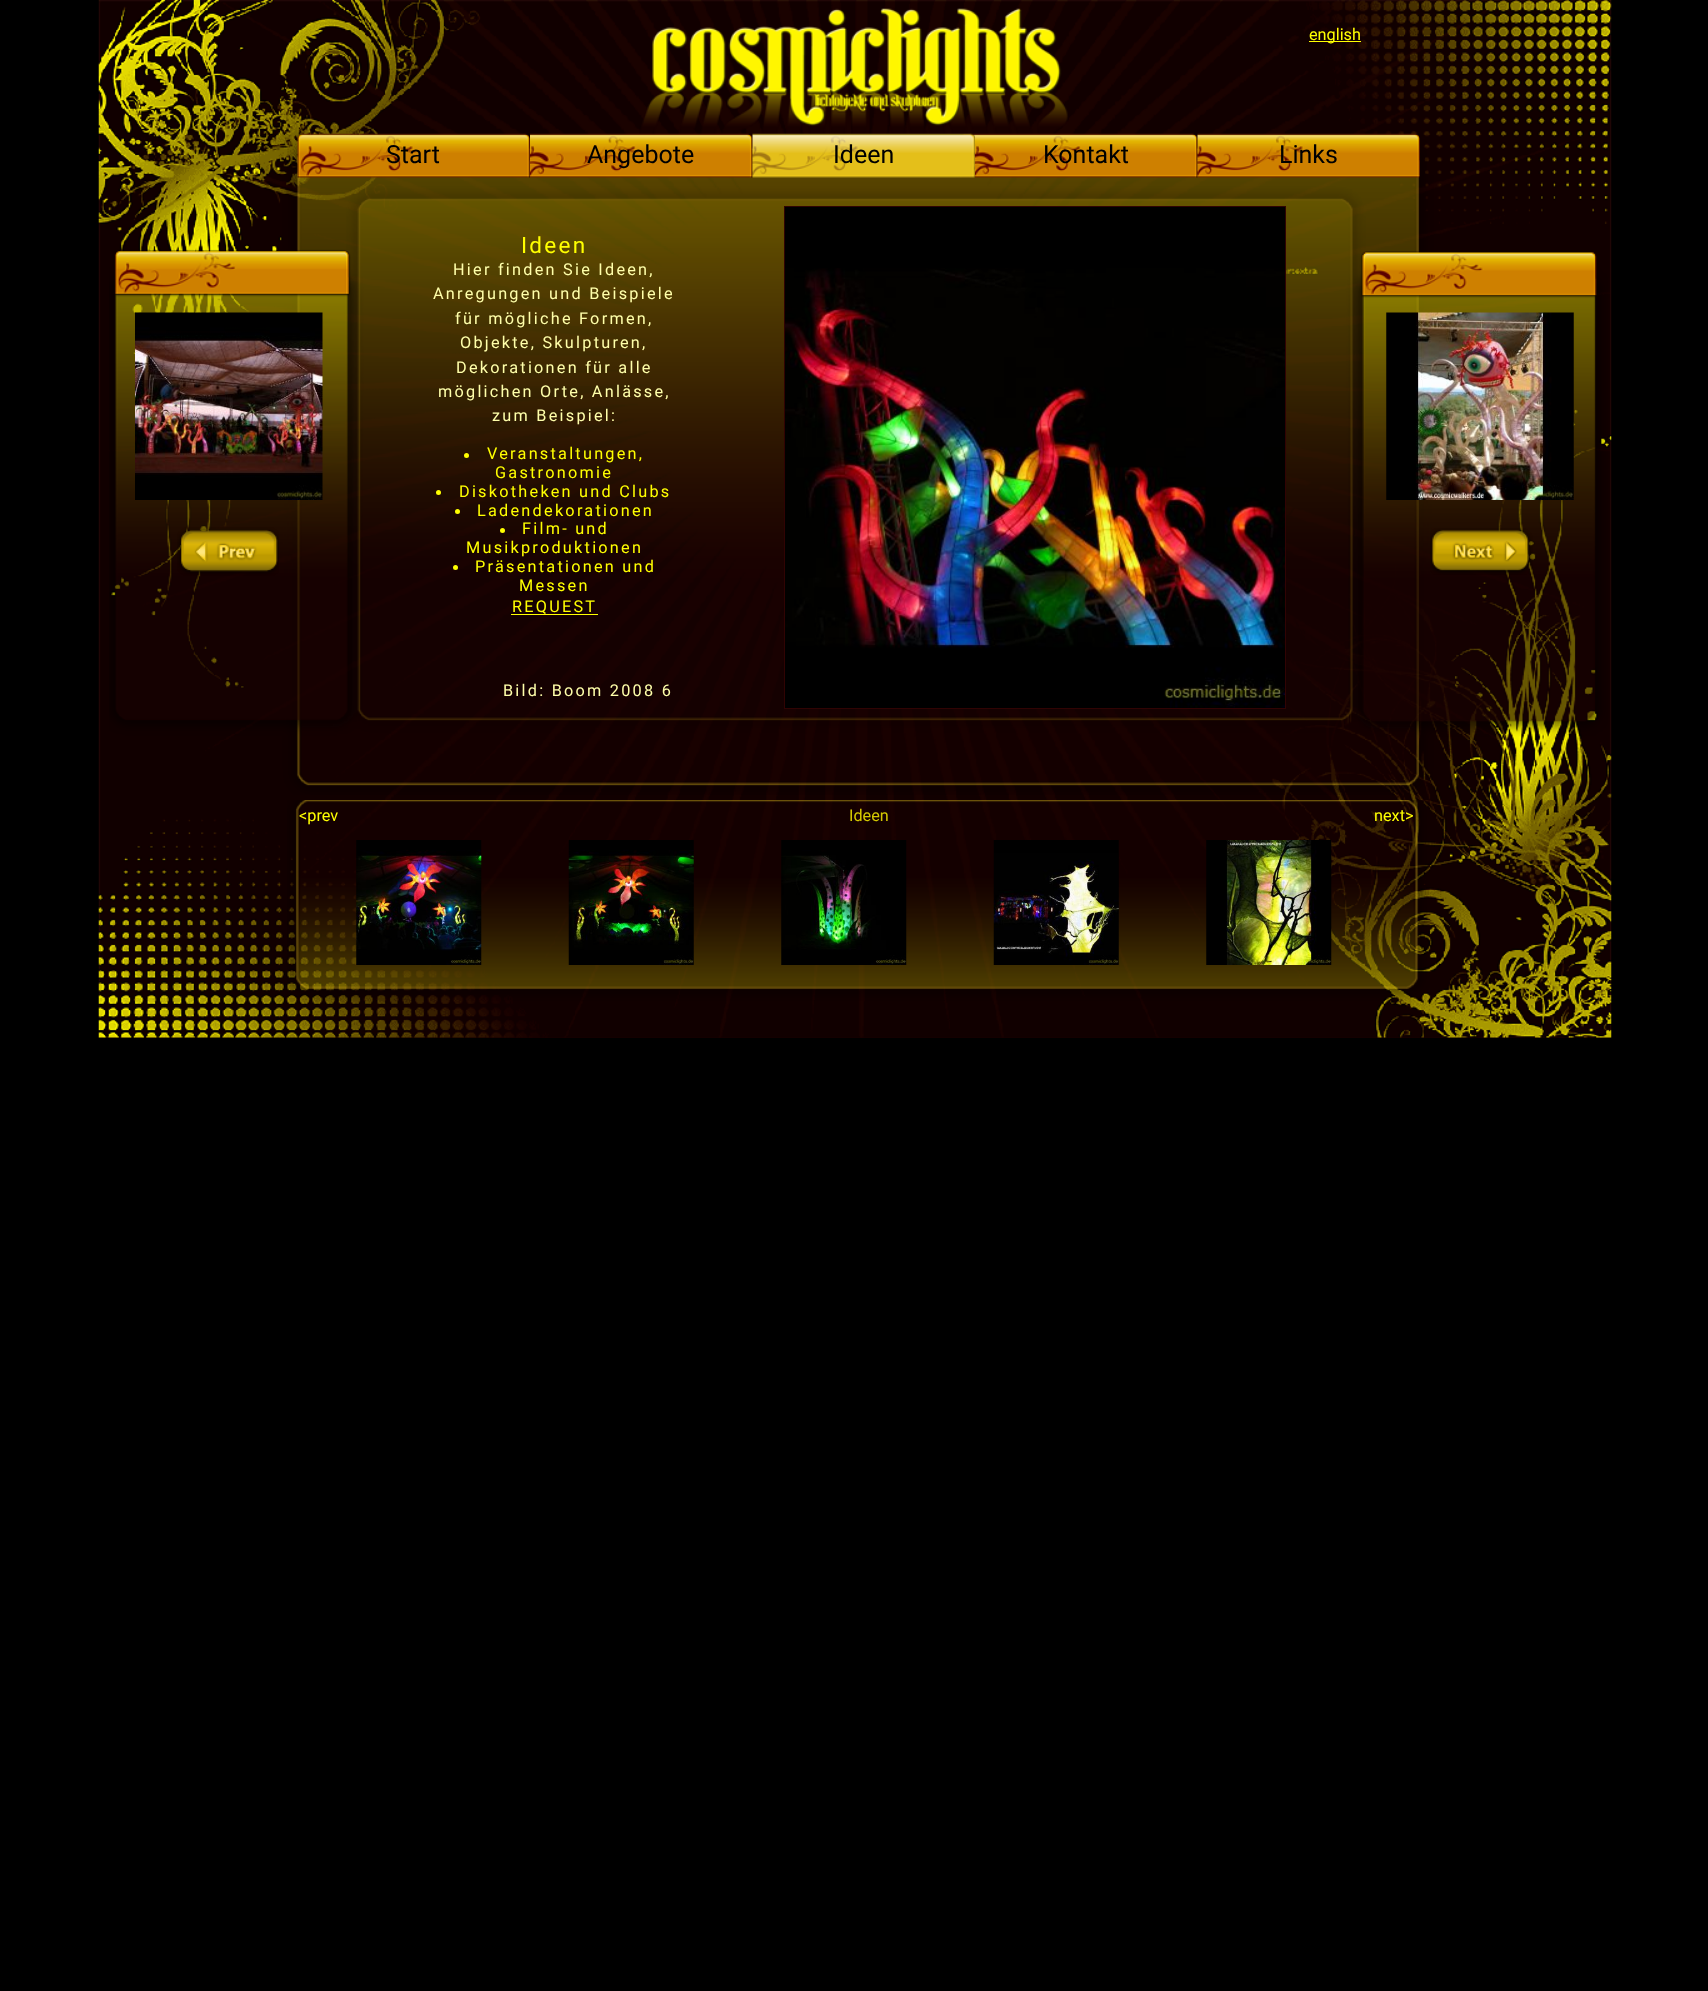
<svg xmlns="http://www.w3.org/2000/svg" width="1708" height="1991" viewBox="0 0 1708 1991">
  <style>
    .t1 { font: 16.25px Roboto; fill: #ff0; }
    .t2 { font: 25px Roboto; fill: #000; }
    .t3 { font: 22.5px Roboto; letter-spacing: 2.25px; fill: #ff0; }
    .t4 { font: 16.25px Roboto; letter-spacing: 2.25px; fill: #ffa; }
    .t5 { font: 16.25px Roboto; letter-spacing: 2.25px; fill: #ff0; }
    .t6 { font: 16.25px Roboto; fill: #d5c901; }
  </style>
  <rect width="100%" height="100%" fill="#000"/>
  <rect x="99" y="1037" width="1512" height="1" fill="#190000"/>
  <image x="98" y="0" width="1514" height="1038" href="images/1.png"/>
  <image x="639" y="8" width="430" height="148" href="images/2.png"/>
  <rect x="1309" y="41" width="52" height="1" fill="#ff0"/>
  <text x="1309" y="40" class="t1">english</text>
  <image x="287" y="137" width="1140" height="38" href="images/3.png"/>
  <image x="109" y="175" width="1499" height="620" href="images/9.png"/>
  <image x="297" y="133" width="233" height="45" href="images/4.png"/>
  <text x="386" y="163" class="t2">Start</text>
  <image x="530" y="133" width="223" height="45" href="images/5.png"/>
  <text x="587" y="163" class="t2">Angebote</text>
  <image x="752" y="133" width="223" height="45" href="images/6.png"/>
  <text x="833" y="163" class="t2">Ideen</text>
  <image x="975" y="133" width="223" height="45" href="images/7.png"/>
  <text x="1043" y="163" class="t2">Kontakt</text>
  <image x="1197" y="133" width="223" height="45" href="images/8.png"/>
  <text x="1279" y="163" class="t2">Links</text>
  <image x="135" y="312" width="188" height="188" href="images/10.png"/>
  <image x="177" y="527" width="102" height="49" href="images/11.png"/>
  <text x="521" y="253" class="t3">Ideen</text>
  <text x="453" y="275" class="t4">Hier finden Sie Ideen,</text>
  <text x="433" y="299" class="t4">Anregungen und Beispiele</text>
  <text x="455" y="324" class="t4">für mögliche Formen,</text>
  <text x="460" y="348" class="t4">Objekte, Skulpturen,</text>
  <text x="456" y="373" class="t4">Dekorationen für alle</text>
  <text x="438" y="397" class="t4">möglichen Orte, Anlässe,</text>
  <text x="492" y="421" class="t4">zum Beispiel:</text>
  <circle cx="466.5" cy="455.5" r="2.5" fill="#ff0"/>
  <text x="487" y="459" class="t5">Veranstaltungen,</text>
  <text x="495" y="478" class="t5">Gastronomie</text>
  <circle cx="438.5" cy="492.5" r="2.5" fill="#ff0"/>
  <text x="459" y="497" class="t5">Diskotheken und Clubs</text>
  <circle cx="457.5" cy="511.5" r="2.5" fill="#ff0"/>
  <text x="477" y="516" class="t5">Ladendekorationen</text>
  <circle cx="502.5" cy="530.5" r="2.5" fill="#ff0"/>
  <text x="522" y="534" class="t5">Film- und</text>
  <text x="466" y="553" class="t5">Musikproduktionen</text>
  <circle cx="455.5" cy="567.5" r="2.5" fill="#ff0"/>
  <text x="475" y="572" class="t5">Präsentationen und</text>
  <text x="519" y="591" class="t5">Messen</text>
  <text x="512" y="612" class="t5">REQUEST</text>
  <rect x="511" y="614" width="87" height="1" fill="#ff0"/>
  <text x="503" y="696" class="t4">Bild: Boom 2008 6</text>
  <rect x="784.5" y="206.5" width="501" height="502" fill="#000" stroke="#300303"/>
  <image x="785" y="268" width="500" height="440" href="images/12.png"/>
  <image x="1386" y="312" width="188" height="188" href="images/13.png"/>
  <image x="1430" y="528" width="103" height="47" href="images/14.png"/>
  <image x="287" y="800" width="1143" height="201" href="images/15.png"/>
  <text x="849" y="821" class="t6">Ideen</text>
  <text x="299" y="821" class="t1">&lt;prev</text>
  <text x="1374" y="821" class="t1">next&gt;</text>
  <image x="356" y="840" width="126" height="125" href="images/16.png"/>
  <image x="568" y="840" width="126" height="125" href="images/17.png"/>
  <image x="781" y="840" width="126" height="125" href="images/18.png"/>
  <image x="993" y="840" width="126" height="125" href="images/19.png"/>
  <image x="1206" y="840" width="126" height="125" href="images/20.png"/>
</svg>
